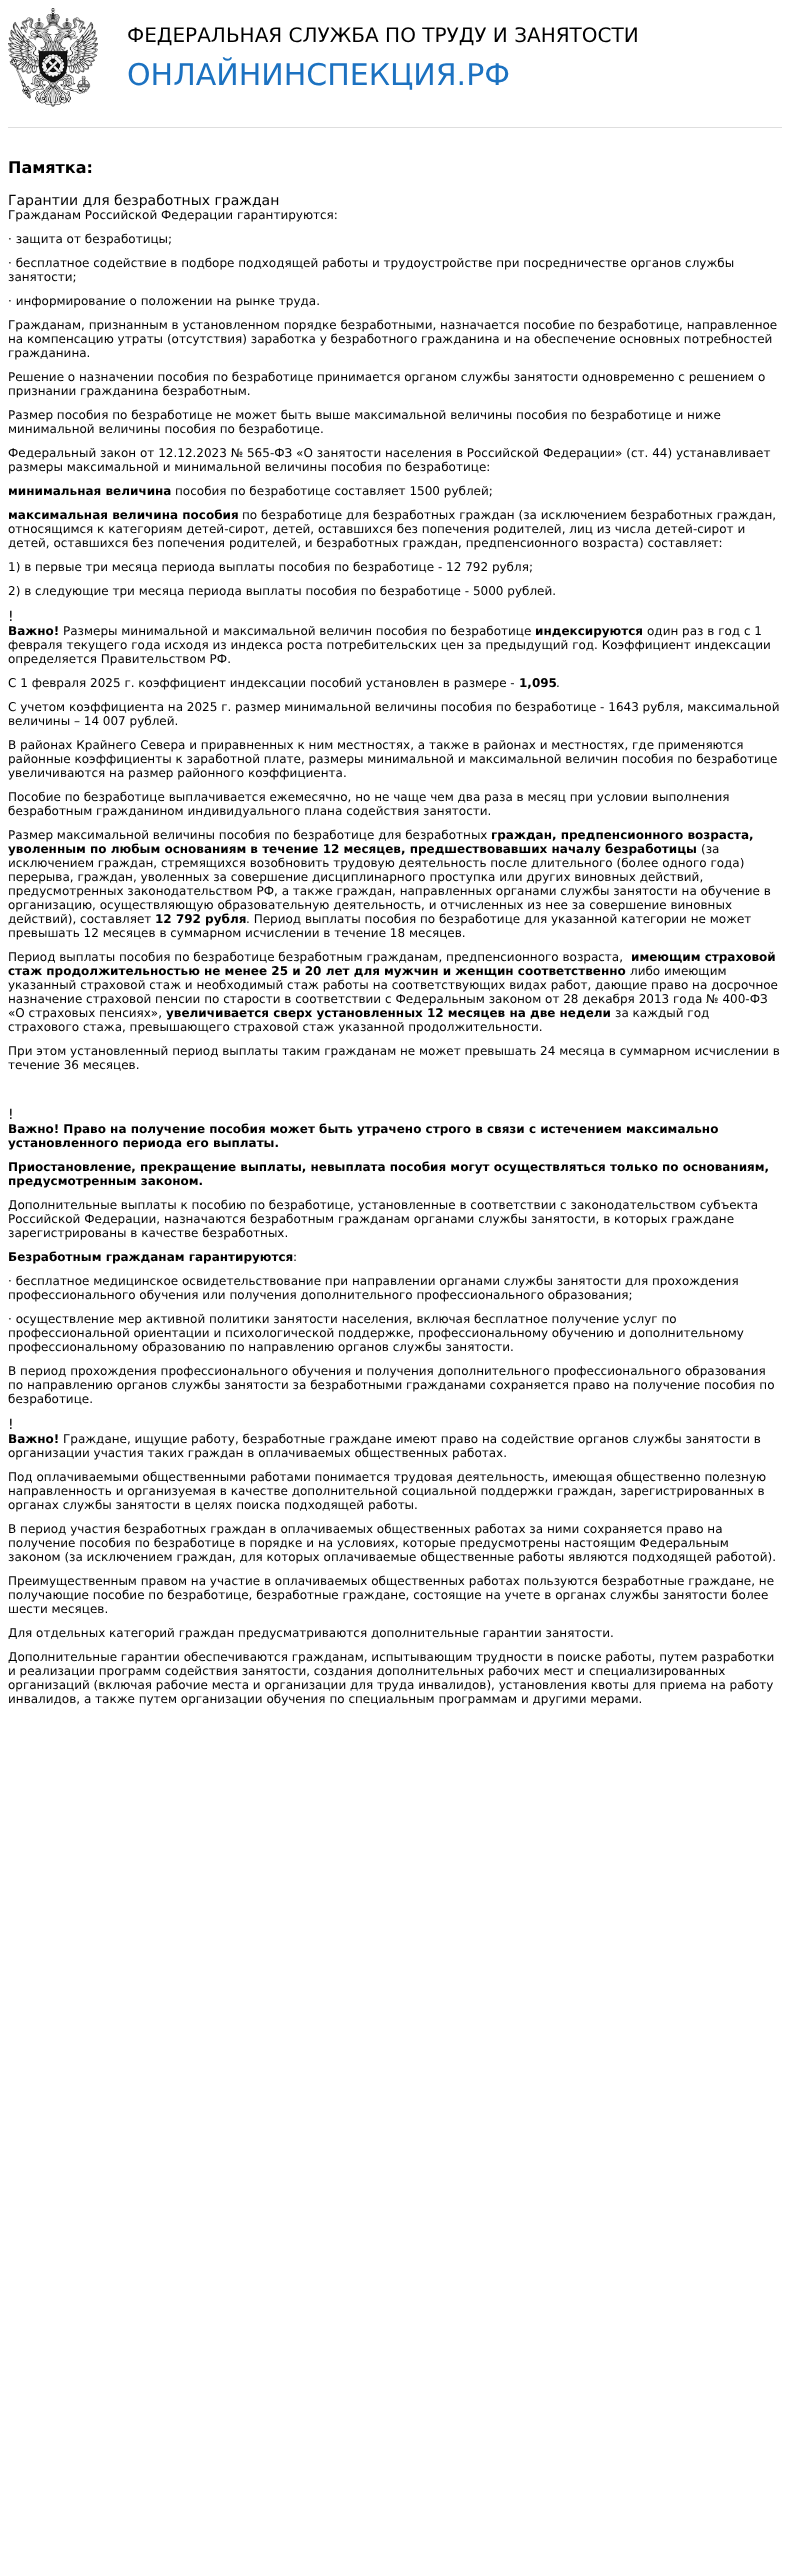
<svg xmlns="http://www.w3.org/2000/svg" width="790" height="2559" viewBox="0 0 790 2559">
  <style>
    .t1 { font: 20px DejaVu Sans; fill: #000; }
    .t2 { font: 30px DejaVu Sans; fill: #1c72c1; }
    .t3 { font: bold 16px DejaVu Sans; fill: #000; }
    .t4 { font: 14px DejaVu Sans; fill: #000; }
    .t5 { font: 12px DejaVu Sans; fill: #000; }
    .t6 { font: bold 12px DejaVu Sans; fill: #000; }
  </style>
  <rect width="100%" height="100%" fill="#fff"/>
  <rect x="8" y="127" width="774" height="1" fill="#dedede"/>
  <image x="8" y="8" width="90" height="99" href="images/1.png"/>
  <text x="127" y="42" class="t1">ФЕДЕРАЛЬНАЯ СЛУЖБА ПО ТРУДУ И ЗАНЯТОСТИ</text>
  <text x="127" y="85" class="t2">ОНЛАЙНИНСПЕКЦИЯ.РФ</text>
  <text x="8" y="173" class="t3">Памятка:</text>
  <text x="8" y="205" class="t4">Гарантии для безработных граждан</text>
  <text x="8" y="219" class="t5">Гражданам Российской Федерации гарантируются:</text>
  <text x="8" y="243" class="t5">· защита от безработицы;</text>
  <text x="8" y="267" class="t5">· бесплатное содействие в подборе подходящей работы и трудоустройстве при посредничестве органов службы</text>
  <text x="8" y="281" class="t5">занятости;</text>
  <text x="8" y="305" class="t5">· информирование о положении на рынке труда.</text>
  <text x="8" y="329" class="t5">Гражданам, признанным в установленном порядке безработными, назначается пособие по безработице, направленное</text>
  <text x="8" y="343" class="t5">на компенсацию утраты (отсутствия) заработка у безработного гражданина и на обеспечение основных потребностей</text>
  <text x="8" y="357" class="t5">гражданина.</text>
  <text x="8" y="381" class="t5">Решение о назначении пособия по безработице принимается органом службы занятости одновременно с решением о</text>
  <text x="8" y="395" class="t5">признании гражданина безработным.</text>
  <text x="8" y="419" class="t5">Размер пособия по безработице не может быть выше максимальной величины пособия по безработице и ниже</text>
  <text x="8" y="433" class="t5">минимальной величины пособия по безработице.</text>
  <text x="8" y="457" class="t5">Федеральный закон от 12.12.2023 № 565-ФЗ «О занятости населения в Российской Федерации» (ст. 44) устанавливает</text>
  <text x="8" y="471" class="t5">размеры максимальной и минимальной величины пособия по безработице:</text>
  <text x="8" y="495" class="t6">минимальная величина</text>
  <text x="175" y="495" class="t5">пособия по безработице составляет 1500 рублей;</text>
  <text x="8" y="519" class="t6">максимальная величина пособия</text>
  <text x="242" y="519" class="t5">по безработице для безработных граждан (за исключением безработных граждан,</text>
  <text x="8" y="533" class="t5">относящимся к категориям детей-сирот, детей, оставшихся без попечения родителей, лиц из числа детей-сирот и</text>
  <text x="8" y="547" class="t5">детей, оставшихся без попечения родителей, и безработных граждан, предпенсионного возраста) составляет:</text>
  <text x="8" y="571" class="t5">1) в первые три месяца периода выплаты пособия по безработице - 12 792 рубля;</text>
  <text x="8" y="595" class="t5">2) в следующие три месяца периода выплаты пособия по безработице - 5000 рублей.</text>
  <text x="8" y="621" class="t4">!</text>
  <text x="8" y="635" class="t6">Важно!</text>
  <text x="63" y="635" class="t5">Размеры минимальной и максимальной величин пособия по безработице</text>
  <text x="535" y="635" class="t6">индексируются</text>
  <text x="647" y="635" class="t5">один раз в год с 1</text>
  <text x="8" y="649" class="t5">февраля текущего года исходя из индекса роста потребительских цен за предыдущий год. Коэффициент индексации</text>
  <text x="8" y="663" class="t5">определяется Правительством РФ.</text>
  <text x="8" y="687" class="t5">С 1 февраля 2025 г. коэффициент индексации пособий установлен в размере -</text>
  <text x="519" y="687" class="t6">1,095</text>
  <text x="556" y="687" class="t5">.</text>
  <text x="8" y="711" class="t5">С учетом коэффициента на 2025 г. размер минимальной величины пособия по безработице - 1643 рубля, максимальной</text>
  <text x="8" y="725" class="t5">величины – 14 007 рублей.</text>
  <text x="8" y="749" class="t5">В районах Крайнего Севера и приравненных к ним местностях, а также в районах и местностях, где применяются</text>
  <text x="8" y="763" class="t5">районные коэффициенты к заработной плате, размеры минимальной и максимальной величин пособия по безработице</text>
  <text x="8" y="777" class="t5">увеличиваются на размер районного коэффициента.</text>
  <text x="8" y="801" class="t5">Пособие по безработице выплачивается ежемесячно, но не чаще чем два раза в месяц при условии выполнения</text>
  <text x="8" y="815" class="t5">безработным гражданином индивидуального плана содействия занятости.</text>
  <text x="8" y="839" class="t5">Размер максимальной величины пособия по безработице для безработных</text>
  <text x="491" y="839" class="t6">граждан, предпенсионного возраста,</text>
  <text x="8" y="853" class="t6">уволенным по любым основаниям в течение 12 месяцев, предшествовавших началу безработицы</text>
  <text x="701" y="853" class="t5">(за</text>
  <text x="8" y="867" class="t5">исключением граждан, стремящихся возобновить трудовую деятельность после длительного (более одного года)</text>
  <text x="8" y="881" class="t5">перерыва, граждан, уволенных за совершение дисциплинарного проступка или других виновных действий,</text>
  <text x="8" y="895" class="t5">предусмотренных законодательством РФ, а также граждан, направленных органами службы занятости на обучение в</text>
  <text x="8" y="909" class="t5">организацию, осуществляющую образовательную деятельность, и отчисленных из нее за совершение виновных</text>
  <text x="8" y="923" class="t5">действий), составляет</text>
  <text x="155" y="923" class="t6">12 792 рубля</text>
  <text x="246" y="923" class="t5">. Период выплаты пособия по безработице для указанной категории не может</text>
  <text x="8" y="937" class="t5">превышать 12 месяцев в суммарном исчислении в течение 18 месяцев.</text>
  <text x="8" y="961" class="t5">Период выплаты пособия по безработице безработным гражданам, предпенсионного возраста,</text>
  <text x="631" y="961" class="t6">имеющим страховой</text>
  <text x="8" y="975" class="t6">стаж продолжительностью не менее 25 и 20 лет для мужчин и женщин соответственно</text>
  <text x="630" y="975" class="t5">либо имеющим</text>
  <text x="8" y="989" class="t5">указанный страховой стаж и необходимый стаж работы на соответствующих видах работ, дающие право на досрочное</text>
  <text x="8" y="1003" class="t5">назначение страховой пенсии по старости в соответствии с Федеральным законом от 28 декабря 2013 года № 400-ФЗ</text>
  <text x="8" y="1017" class="t5">«О страховых пенсиях»,</text>
  <text x="166" y="1017" class="t6">увеличивается сверх установленных 12 месяцев на две недели</text>
  <text x="615" y="1017" class="t5">за каждый год</text>
  <text x="8" y="1031" class="t5">страхового стажа, превышающего страховой стаж указанной продолжительности.</text>
  <text x="8" y="1055" class="t5">При этом установленный период выплаты таким гражданам не может превышать 24 месяца в суммарном исчислении в</text>
  <text x="8" y="1069" class="t5">течение 36 месяцев.</text>
  <text x="8" y="1119" class="t4">!</text>
  <text x="8" y="1133" class="t6">Важно! Право на получение пособия может быть утрачено строго в связи с истечением максимально</text>
  <text x="8" y="1147" class="t6">установленного периода его выплаты.</text>
  <text x="8" y="1171" class="t6">Приостановление, прекращение выплаты, невыплата пособия могут осуществляться только по основаниям,</text>
  <text x="8" y="1185" class="t6">предусмотренным законом.</text>
  <text x="8" y="1209" class="t5">Дополнительные выплаты к пособию по безработице, установленные в соответствии с законодательством субъекта</text>
  <text x="8" y="1223" class="t5">Российской Федерации, назначаются безработным гражданам органами службы занятости, в которых граждане</text>
  <text x="8" y="1237" class="t5">зарегистрированы в качестве безработных.</text>
  <text x="8" y="1261" class="t6">Безработным гражданам гарантируются</text>
  <text x="293" y="1261" class="t5">:</text>
  <text x="8" y="1285" class="t5">· бесплатное медицинское освидетельствование при направлении органами службы занятости для прохождения</text>
  <text x="8" y="1299" class="t5">профессионального обучения или получения дополнительного профессионального образования;</text>
  <text x="8" y="1323" class="t5">· осуществление мер активной политики занятости населения, включая бесплатное получение услуг по</text>
  <text x="8" y="1337" class="t5">профессиональной ориентации и психологической поддержке, профессиональному обучению и дополнительному</text>
  <text x="8" y="1351" class="t5">профессиональному образованию по направлению органов службы занятости.</text>
  <text x="8" y="1375" class="t5">В период прохождения профессионального обучения и получения дополнительного профессионального образования</text>
  <text x="8" y="1389" class="t5">по направлению органов службы занятости за безработными гражданами сохраняется право на получение пособия по</text>
  <text x="8" y="1403" class="t5">безработице.</text>
  <text x="8" y="1429" class="t4">!</text>
  <text x="8" y="1443" class="t6">Важно!</text>
  <text x="63" y="1443" class="t5">Граждане, ищущие работу, безработные граждане имеют право на содействие органов службы занятости в</text>
  <text x="8" y="1457" class="t5">организации участия таких граждан в оплачиваемых общественных работах.</text>
  <text x="8" y="1481" class="t5">Под оплачиваемыми общественными работами понимается трудовая деятельность, имеющая общественно полезную</text>
  <text x="8" y="1495" class="t5">направленность и организуемая в качестве дополнительной социальной поддержки граждан, зарегистрированных в</text>
  <text x="8" y="1509" class="t5">органах службы занятости в целях поиска подходящей работы.</text>
  <text x="8" y="1533" class="t5">В период участия безработных граждан в оплачиваемых общественных работах за ними сохраняется право на</text>
  <text x="8" y="1547" class="t5">получение пособия по безработице в порядке и на условиях, которые предусмотрены настоящим Федеральным</text>
  <text x="8" y="1561" class="t5">законом (за исключением граждан, для которых оплачиваемые общественные работы являются подходящей работой).</text>
  <text x="8" y="1585" class="t5">Преимущественным правом на участие в оплачиваемых общественных работах пользуются безработные граждане, не</text>
  <text x="8" y="1599" class="t5">получающие пособие по безработице, безработные граждане, состоящие на учете в органах службы занятости более</text>
  <text x="8" y="1613" class="t5">шести месяцев.</text>
  <text x="8" y="1637" class="t5">Для отдельных категорий граждан предусматриваются дополнительные гарантии занятости.</text>
  <text x="8" y="1661" class="t5">Дополнительные гарантии обеспечиваются гражданам, испытывающим трудности в поиске работы, путем разработки</text>
  <text x="8" y="1675" class="t5">и реализации программ содействия занятости, создания дополнительных рабочих мест и специализированных</text>
  <text x="8" y="1689" class="t5">организаций (включая рабочие места и организации для труда инвалидов), установления квоты для приема на работу</text>
  <text x="8" y="1703" class="t5">инвалидов, а также путем организации обучения по специальным программам и другими мерами.</text>
</svg>
